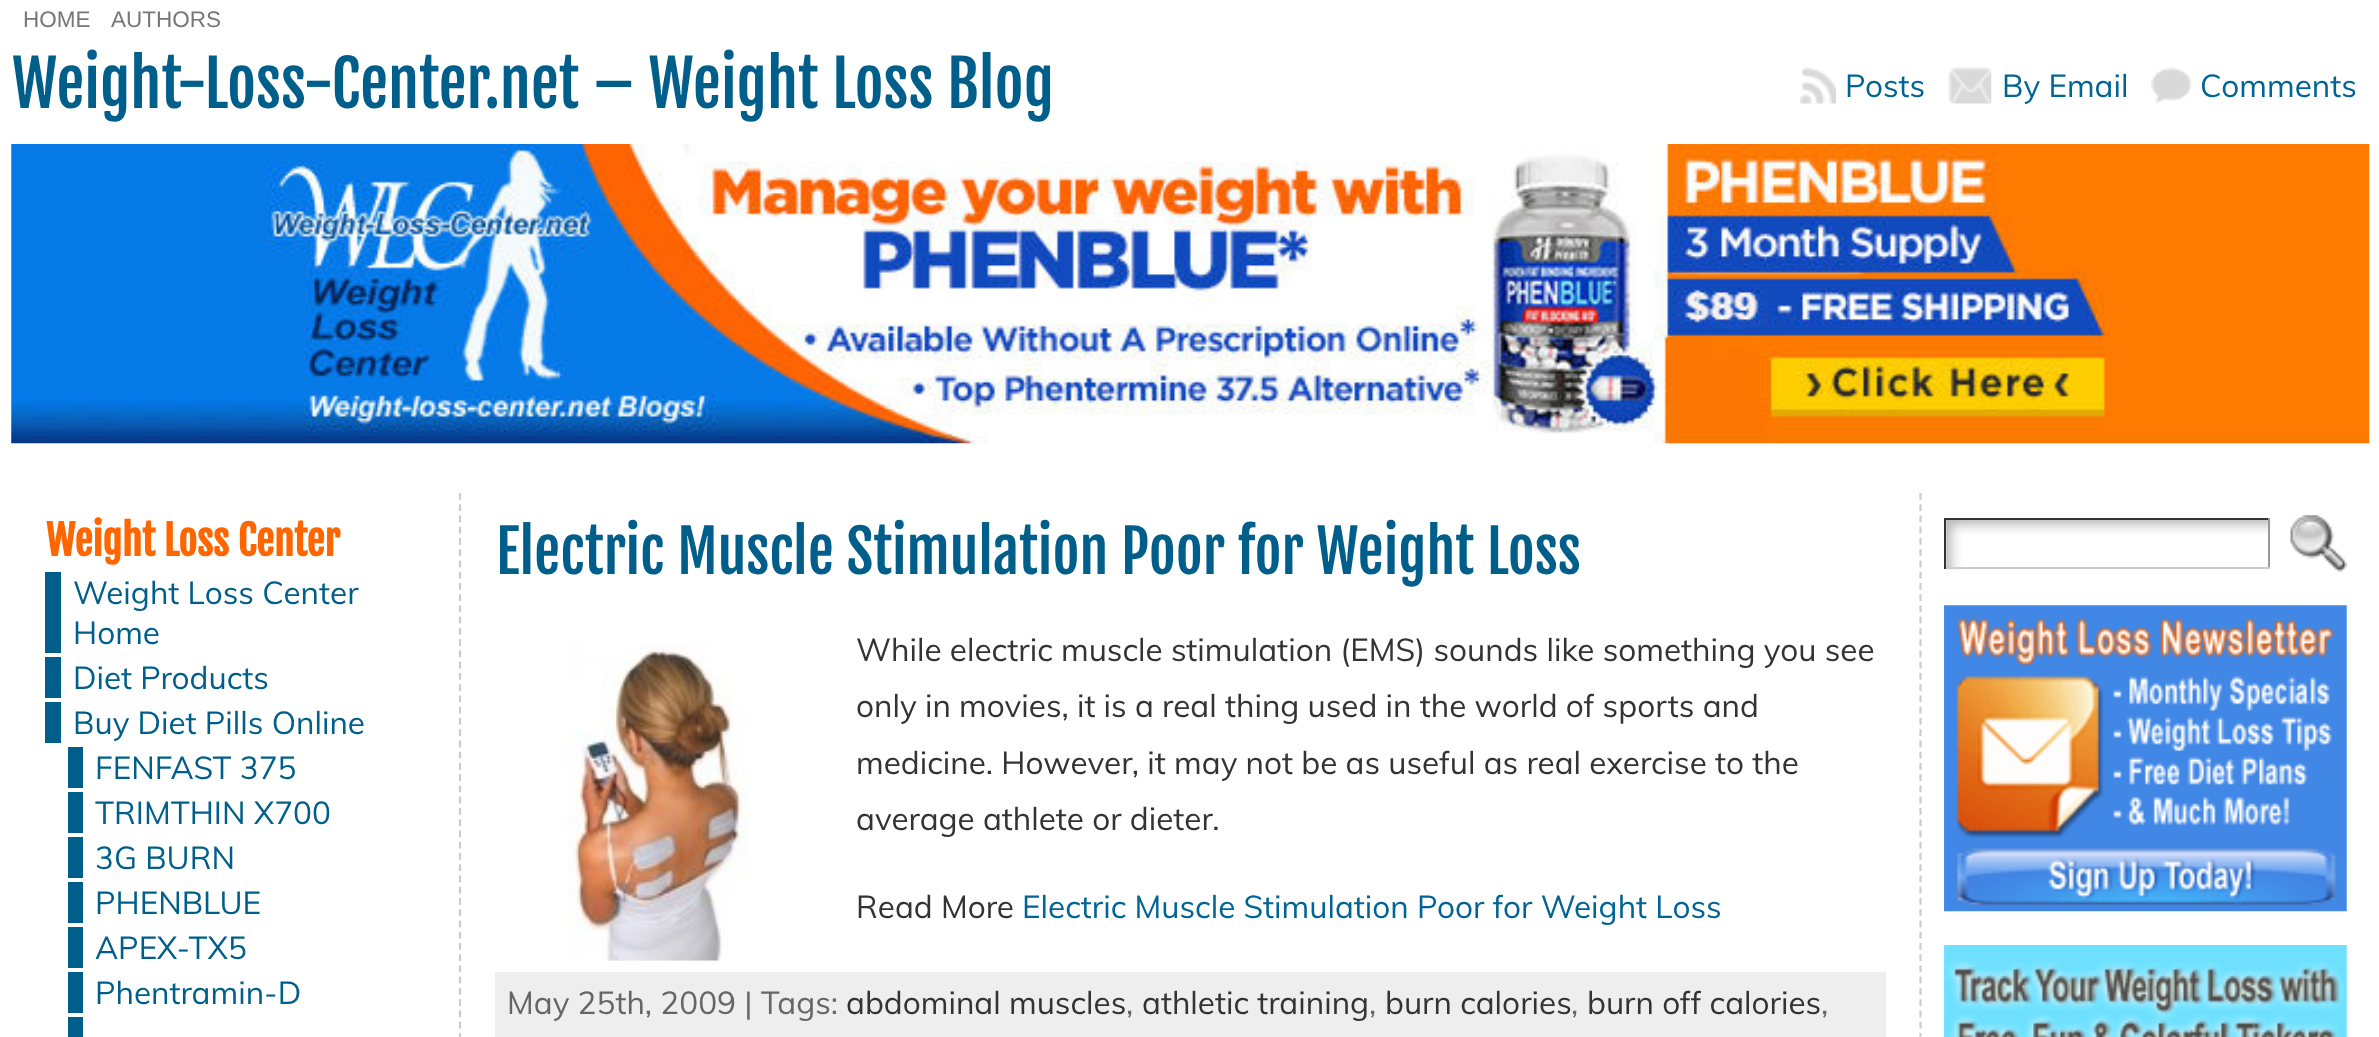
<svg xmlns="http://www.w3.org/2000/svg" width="2379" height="1037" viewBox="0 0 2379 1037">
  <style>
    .t1 { font: 22.5px Liberation Sans; fill: #777; }
    .t2 { font: 63px Fjalla One; fill: #005f8a; }
    .t3 { font: 31.5px Muli; fill: #006494; }
    .t4 { font: bold 40.5px Fjalla One; fill: #f60; }
    .t5 { font: 31.5px Muli; fill: #005f8a; }
    .t6 { font: 58.5px Fjalla One; fill: #005f8a; }
    .t7 { font: 31.5px Muli; fill: #333; }
    .t8 { font: 31.5px Muli; fill: #666; }
  </style>
  <rect width="100%" height="100%" fill="#fff"/>
  <text x="23" y="27" class="t1">HOME</text>
  <text x="111" y="27" class="t1">AUTHORS</text>
  <text x="12" y="108" class="t2">Weight-Loss-Center.net – Weight Loss Blog</text>
  <image x="1800" y="67" width="36" height="37" href="images/1.png"/>
  <text x="1845" y="97" class="t3">Posts</text>
  <image x="1948" y="67" width="44" height="37" href="images/2.png"/>
  <text x="2002" y="97" class="t3">By Email</text>
  <image x="2151" y="67" width="41" height="37" href="images/3.png"/>
  <text x="2200" y="97" class="t3">Comments</text>
  <image x="11" y="144" width="2359" height="300" href="images/4.png"/>
  <path d="M460 493V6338" fill="none" stroke="#ccc" stroke-width="2.2" stroke-dasharray="6.75 4.5"/>
  <text x="46" y="556" class="t4">Weight Loss Center</text>
  <rect x="45" y="572" width="16" height="81" fill="#005f8a"/>
  <text x="73" y="604" class="t5">Weight Loss Center</text>
  <text x="73" y="644" class="t5">Home</text>
  <rect x="45" y="657" width="16" height="41" fill="#005f8a"/>
  <text x="73" y="689" class="t5">Diet Products</text>
  <rect x="45" y="702" width="16" height="41" fill="#005f8a"/>
  <text x="73" y="734" class="t5">Buy Diet Pills Online</text>
  <rect x="68" y="747" width="15" height="41" fill="#005f8a"/>
  <text x="95" y="779" class="t5">FENFAST 375</text>
  <rect x="68" y="792" width="15" height="41" fill="#005f8a"/>
  <text x="95" y="824" class="t5">TRIMTHIN X700</text>
  <rect x="68" y="837" width="15" height="41" fill="#005f8a"/>
  <text x="95" y="869" class="t5">3G BURN</text>
  <rect x="68" y="882" width="15" height="41" fill="#005f8a"/>
  <text x="95" y="914" class="t5">PHENBLUE</text>
  <rect x="68" y="927" width="15" height="41" fill="#005f8a"/>
  <text x="95" y="959" class="t5">APEX-TX5</text>
  <rect x="68" y="972" width="15" height="41" fill="#005f8a"/>
  <text x="95" y="1004" class="t5">Phentramin-D</text>
  <rect x="68" y="1017" width="15" height="20" fill="#005f8a"/>
  <text x="496" y="574" class="t6">Electric Muscle Stimulation Poor for Weight Loss</text>
  <image x="567" y="642" width="182" height="319" href="images/5.png"/>
  <text x="856" y="661" class="t7">While electric muscle stimulation (EMS) sounds like something you see</text>
  <text x="856" y="717" class="t7">only in movies, it is a real thing used in the world of sports and</text>
  <text x="856" y="774" class="t7">medicine. However, it may not be as useful as real exercise to the</text>
  <text x="856" y="830" class="t7">average athlete or dieter.</text>
  <text x="856" y="918" class="t7">Read More</text>
  <text x="1022" y="918" class="t3">Electric Muscle Stimulation Poor for Weight Loss</text>
  <rect x="495" y="972" width="1391" height="65" fill="#eee"/>
  <text x="507" y="1014" class="t8">May 25th, 2009 | Tags:</text>
  <text x="846" y="1014" class="t7">abdominal muscles</text>
  <text x="1126" y="1014" class="t8">,</text>
  <text x="1142" y="1014" class="t7">athletic training</text>
  <text x="1369" y="1014" class="t8">,</text>
  <text x="1385" y="1014" class="t7">burn calories</text>
  <text x="1571" y="1014" class="t8">,</text>
  <text x="1587" y="1014" class="t7">burn off calories</text>
  <text x="1821" y="1014" class="t8">,</text>
  <path d="M1920.5 493V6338" fill="none" stroke="#ccc" stroke-width="2.2" stroke-dasharray="6.75 4.5"/>
  <image x="1946" y="519" width="325" height="51" href="images/6.png"/>
  <rect x="1944" y="518" width="326" height="2" fill="#333"/>
  <rect x="2268" y="518" width="2" height="51" fill="#999"/>
  <rect x="1944" y="567" width="326" height="2" fill="#ccc"/>
  <rect x="1944" y="518" width="2" height="51" fill="#333"/>
  <image x="2290" y="515" width="57" height="57" href="images/7.png"/>
  <image x="1944" y="605" width="403" height="307" href="images/8.png"/>
  <image x="1944" y="945" width="403" height="92" href="images/9.png"/>
</svg>
